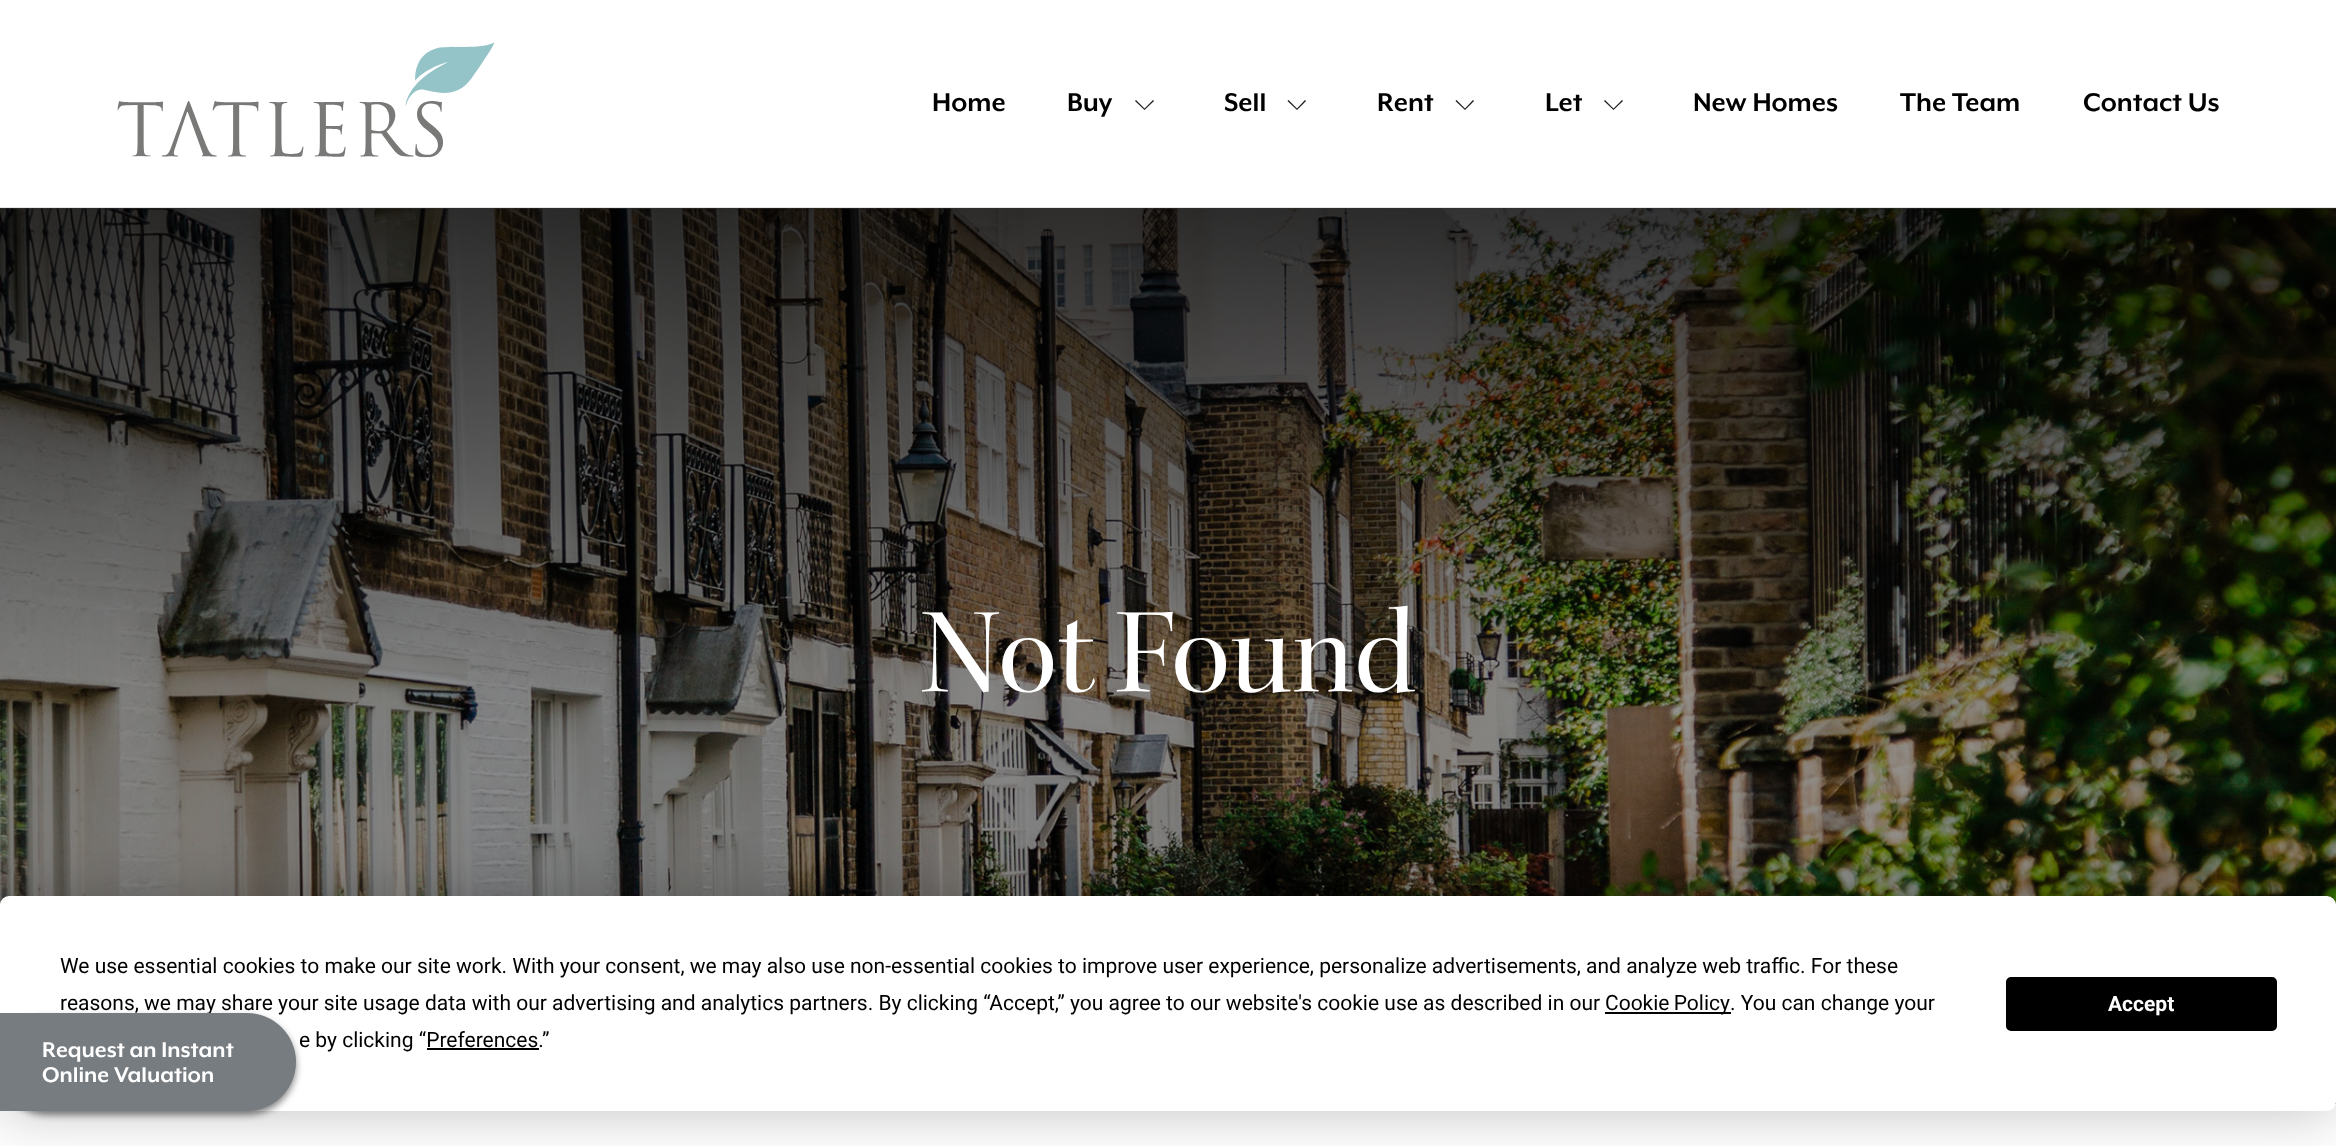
<svg xmlns="http://www.w3.org/2000/svg" width="2336" height="1146" viewBox="0 0 2336 1146">
  <style>
    .t1 { font: bold 29.5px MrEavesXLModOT; fill: #000; }
    .t2 { font: 122.5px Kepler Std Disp; fill: #fff; }
    .t3 { font: 21px Roboto; fill: #000; }
    .t4 { font: bold 21px Roboto; fill: #fff; }
    .t5 { font: bold 24.5px MrEavesXLModOT; fill: #fff; }
  </style>
  <defs>
    <linearGradient id="g1" gradientUnits="userSpaceOnUse" x1="1168" y1="208" x2="1168" y2="1104"><stop offset="0" stop-color="#000" stop-opacity="0.8"/><stop offset="0.54" stop-color="#000" stop-opacity="0.4"/><stop offset="0.56" stop-color="#000" stop-opacity="0.4"/></linearGradient>
  </defs>
  <rect width="100%" height="100%" fill="#fff"/>
  <rect x="0" y="208" width="2336" height="1" fill="#000"/>
  <image x="0" y="208" width="2336" height="897" href="images/2.png"/>
  <rect x="0" y="208" width="2336" height="896" fill="url(#g1)"/>
  <rect x="0" y="207" width="2336" height="2" fill="#80808033"/>
  <image x="117" y="42" width="377" height="116" href="images/1.png"/>
  <text x="932" y="111" class="t1">Home</text>
  <text x="1067" y="111" class="t1">Buy</text>
  <path d="M1154 101L1153 100L1144.5 108.5L1136 100L1135 101L1144.5 110Z" fill="#1c1c1b"/>
  <text x="1224" y="111" class="t1">Sell</text>
  <path d="M1306 101L1305 100L1297 108.5L1288.5 100L1287.5 101L1297 110Z" fill="#1c1c1b"/>
  <text x="1377" y="111" class="t1">Rent</text>
  <path d="M1474 101L1473 100L1465 108.5L1456.5 100L1455.5 101L1465 110Z" fill="#1c1c1b"/>
  <text x="1545" y="111" class="t1">Let</text>
  <path d="M1623 101L1622 100L1613.5 108.5L1605 100L1604 101L1613.5 110Z" fill="#1c1c1b"/>
  <text x="1693" y="111" class="t1">New Homes</text>
  <text x="1900" y="111" class="t1">The Team</text>
  <text x="2083" y="111" class="t1">Contact Us</text>
  <text x="921" y="691" class="t2">Not Found</text>
  <rect x="0" y="896" width="2336" height="215" rx="9" fill="#00000040" filter="blur(30.5px)"/>
  <rect x="0" y="896" width="2336" height="215" rx="9" fill="#fff"/>
  <text x="60" y="973" class="t3">We use essential cookies to make our site work. With your consent, we may also use non-essential cookies to improve user experience, personalize advertisements, and analyze web traffic. For these</text>
  <text x="60" y="1010" class="t3">reasons, we may share your site usage data with our advertising and analytics partners. By clicking “Accept,” you agree to our website's cookie use as described in our</text>
  <rect x="1605" y="1012" width="126" height="2" fill="#000"/>
  <text x="1605" y="1010" word-spacing="-1" class="t3">Cookie Policy</text>
  <text x="1730" y="1010" class="t3">. You can change your</text>
  <text x="299" y="1047" class="t3">e by clicking “Preferences.”</text>
  <rect x="427" y="1048" width="112" height="2" fill="#000"/>
  <rect x="2007" y="978" width="269" height="52" rx="4" fill="#000" stroke="#000" stroke-width="2"/>
  <text x="2108" y="1011" class="t4">Accept</text>
  <rect x="-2" y="1017" width="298" height="98" rx="49" fill="#0000007a" filter="blur(3.5px)"/>
  <path d="M-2 1013H247C274 1013 296 1035 296 1062C296 1089 274 1111 247 1111H-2Z" fill="#777c80"/>
  <text x="42" y="1057" class="t5">Request an Instant</text>
  <text x="42" y="1082" class="t5">Online Valuation</text>
</svg>
